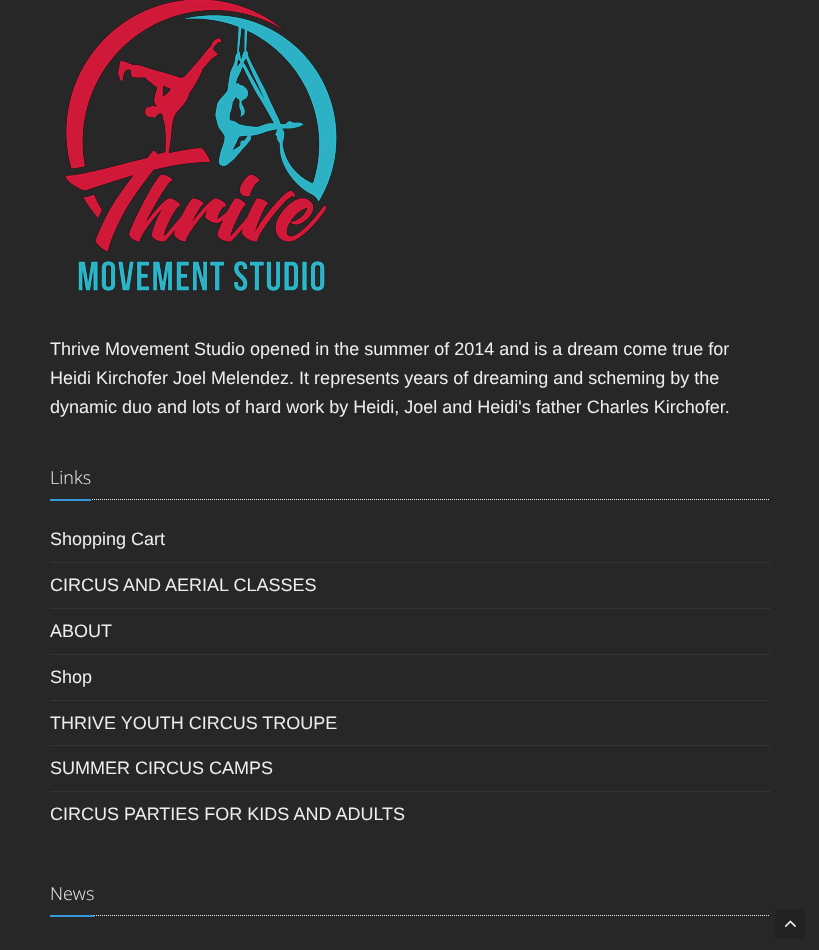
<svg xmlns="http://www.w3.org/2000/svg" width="819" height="950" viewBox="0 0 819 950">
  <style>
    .t1 { font: 18px Liberation Sans; fill: #eee; }
    .t2 { font: 300 18px Open Sans; fill: #eee; }
  </style>
  <rect width="100%" height="100%" fill="#272727"/>
  <image x="65" y="0" width="272" height="291" href="images/1.png"/>
  <text x="50" y="355" class="t1">Thrive Movement Studio opened in the summer of 2014 and is a dream come true for</text>
  <text x="50" y="384" class="t1">Heidi Kirchofer Joel Melendez. It represents years of dreaming and scheming by the</text>
  <text x="50" y="413" class="t1">dynamic duo and lots of hard work by Heidi, Joel and Heidi's father Charles Kirchofer.</text>
  <path d="M50 499.5H770" fill="none" stroke="#e4e9f0" stroke-dasharray="1 1"/>
  <rect x="50" y="499" width="41" height="2" fill="#3498db"/>
  <text x="50" y="484" class="t2">Links</text>
  <text x="50" y="545" class="t1">Shopping Cart</text>
  <rect x="50" y="562" width="720" height="1" fill="#353535"/>
  <text x="50" y="591" class="t1">CIRCUS AND AERIAL CLASSES</text>
  <rect x="50" y="608" width="720" height="1" fill="#353535"/>
  <text x="50" y="637" class="t1">ABOUT</text>
  <rect x="50" y="654" width="720" height="1" fill="#353535"/>
  <text x="50" y="683" class="t1">Shop</text>
  <rect x="50" y="700" width="720" height="1" fill="#353535"/>
  <text x="50" y="729" class="t1">THRIVE YOUTH CIRCUS TROUPE</text>
  <rect x="50" y="745" width="720" height="1" fill="#353535"/>
  <text x="50" y="774" class="t1">SUMMER CIRCUS CAMPS</text>
  <rect x="50" y="791" width="720" height="1" fill="#353535"/>
  <text x="50" y="820" class="t1">CIRCUS PARTIES FOR KIDS AND ADULTS</text>
  <path d="M50 915.5H770" fill="none" stroke="#e4e9f0" stroke-dasharray="1 1"/>
  <rect x="50" y="915" width="44" height="2" fill="#3498db"/>
  <text x="50" y="900" class="t2">News</text>
  <rect x="775" y="909" width="30" height="30" rx="3" fill="#222"/>
  <image x="784" y="920" width="12" height="7" href="images/2.png"/>
</svg>
